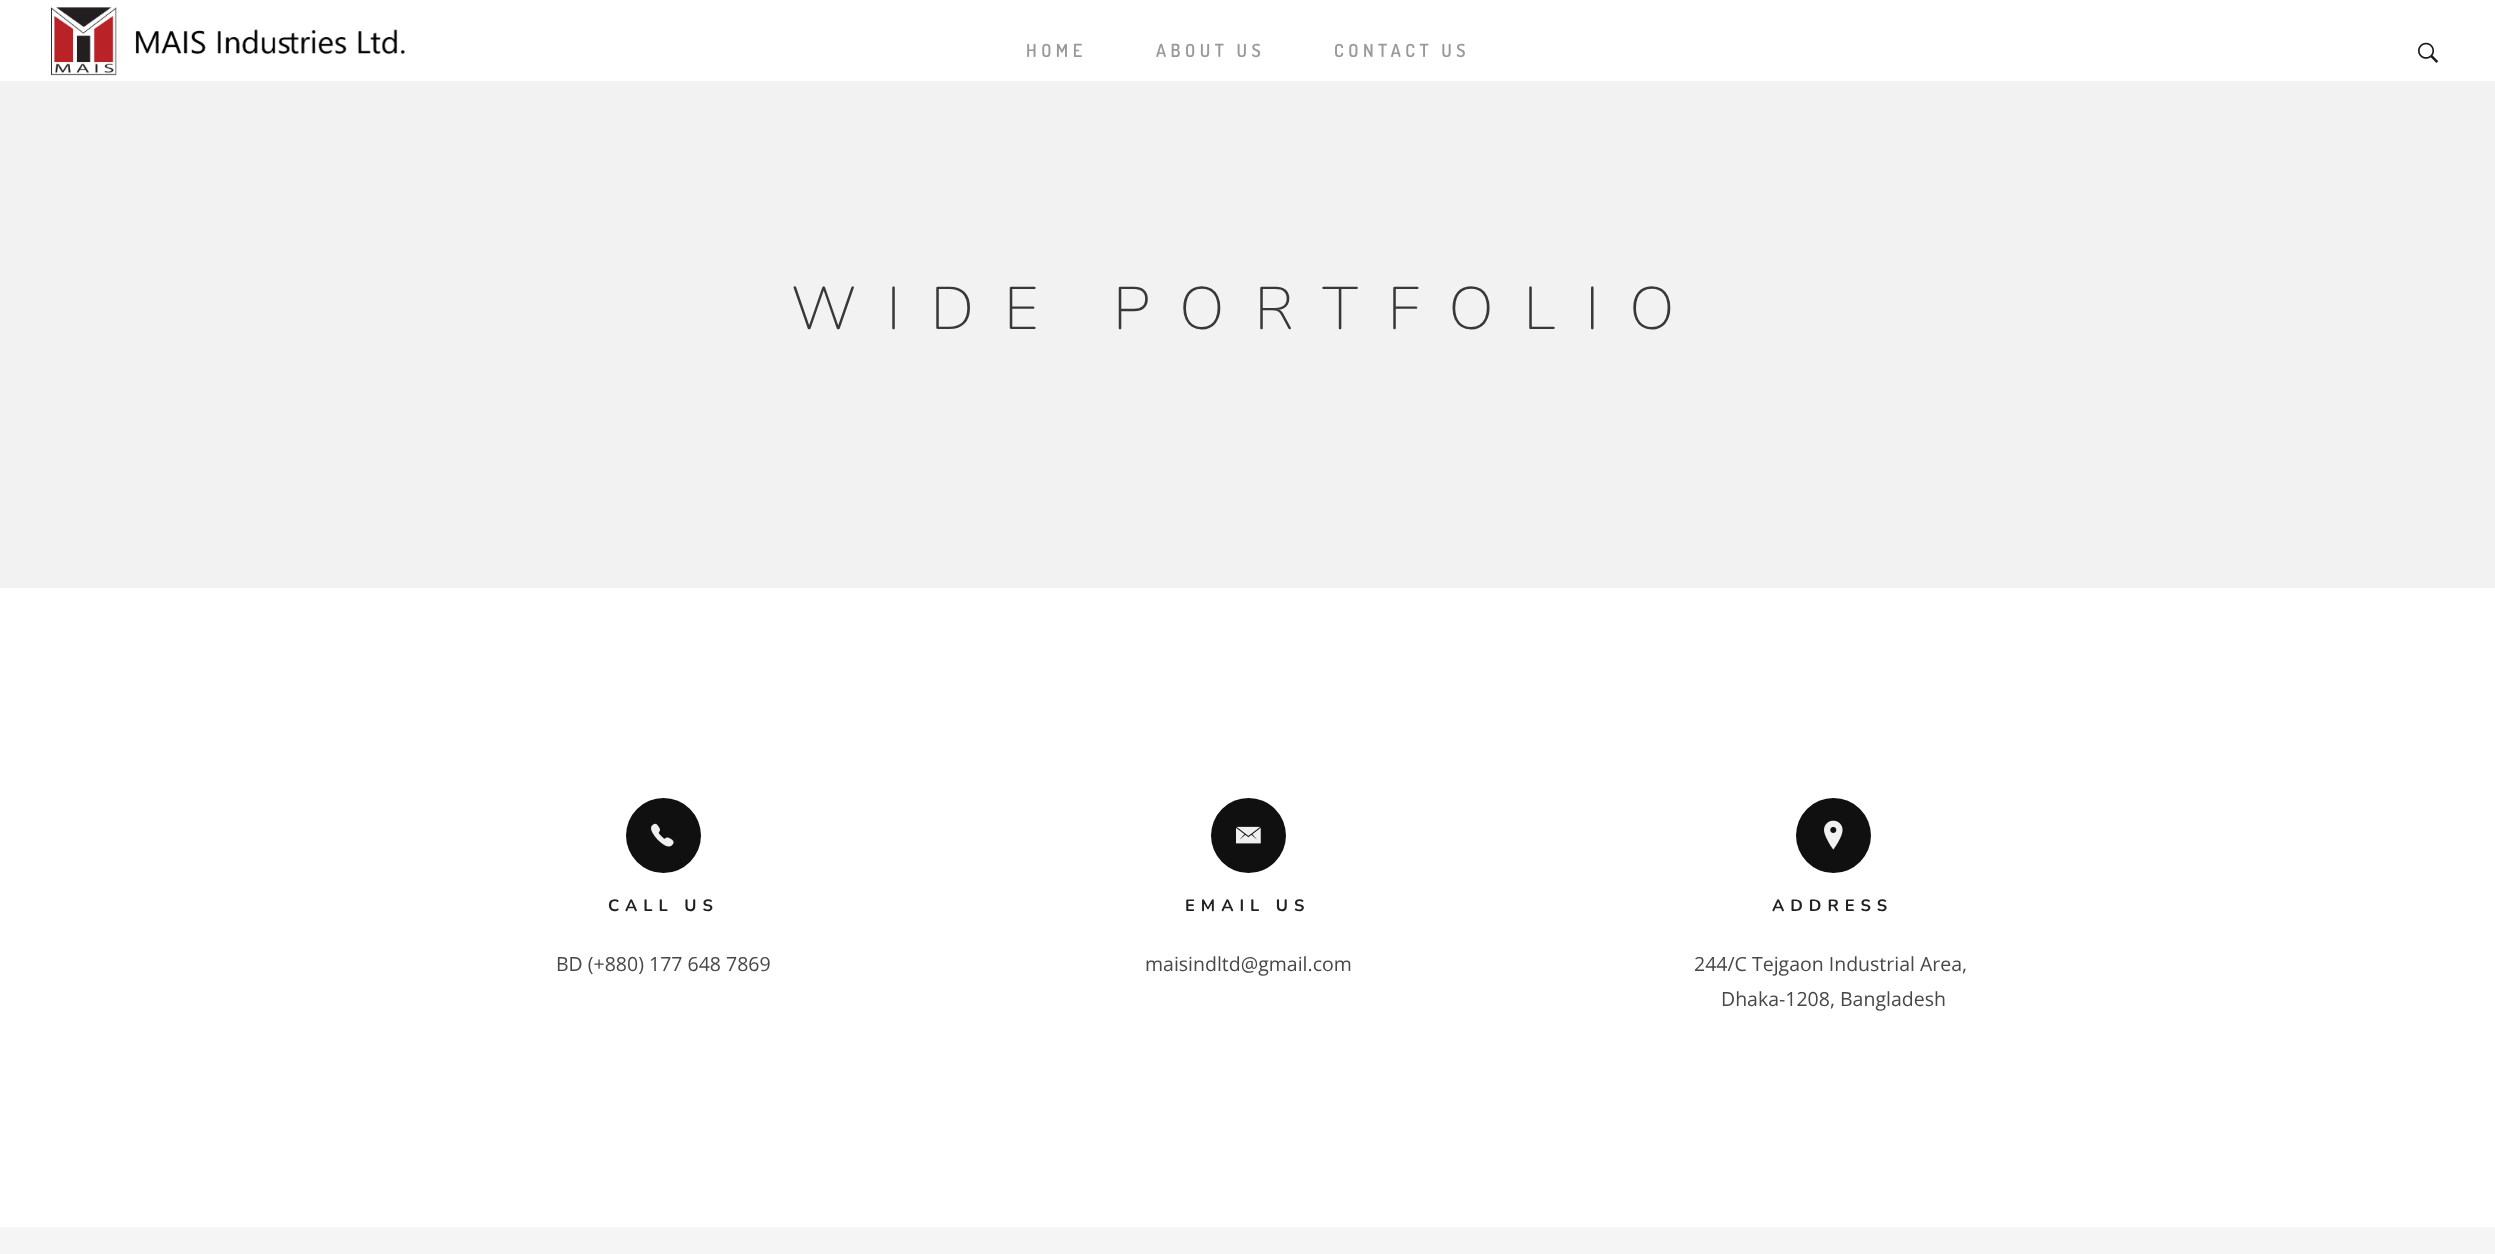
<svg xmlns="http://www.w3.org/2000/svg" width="2495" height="1254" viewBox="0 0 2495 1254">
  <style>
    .t1 { font: 600 18px Dosis; letter-spacing: 4.5px; fill: #999; }
    .t2 { font: 200 60px Nunito; letter-spacing: 30px; fill: #383838; }
    .t3 { font: bold 16.5px Nunito; letter-spacing: 6px; fill: #212121; }
    .t4 { font: 19.5px Open Sans; fill: #474747; }
  </style>
  <rect width="100%" height="100%" fill="#fff"/>
  <image x="51" y="7" width="355" height="69" href="images/1.png"/>
  <text x="1026" y="57" class="t1">HOME</text>
  <text x="1156" y="57" class="t1">ABOUT US</text>
  <text x="1334" y="57" class="t1">CONTACT US</text>
  <image x="2418" y="42" width="21" height="21" href="images/2.png"/>
  <rect x="0" y="81" width="2495" height="507" fill="#f2f2f2"/>
  <text x="791" y="329" class="t2">WIDE PORTFOLIO</text>
  <circle cx="663.5" cy="835.5" r="37.5" fill="#101010"/>
  <image x="651" y="823" width="23" height="24" href="images/3.png"/>
  <text x="608" y="911" class="t3">CALL US</text>
  <text x="556" y="971" class="t4">BD (+880) 177 648 7869</text>
  <circle cx="1248.5" cy="835.5" r="37.5" fill="#101010"/>
  <image x="1236" y="826" width="25" height="18" href="images/4.png"/>
  <text x="1185" y="911" class="t3">EMAIL US</text>
  <text x="1145" y="971" class="t4">maisindltd@gmail.com</text>
  <circle cx="1833.5" cy="835.5" r="37.5" fill="#101010"/>
  <image x="1824" y="820" width="19" height="30" href="images/5.png"/>
  <text x="1772" y="911" class="t3">ADDRESS</text>
  <text x="1694" y="971" class="t4">244/C Tejgaon Industrial Area,</text>
  <text x="1721" y="1006" class="t4">Dhaka-1208, Bangladesh</text>
  <rect x="0" y="1227" width="2495" height="27" fill="#f5f5f5"/>
</svg>
